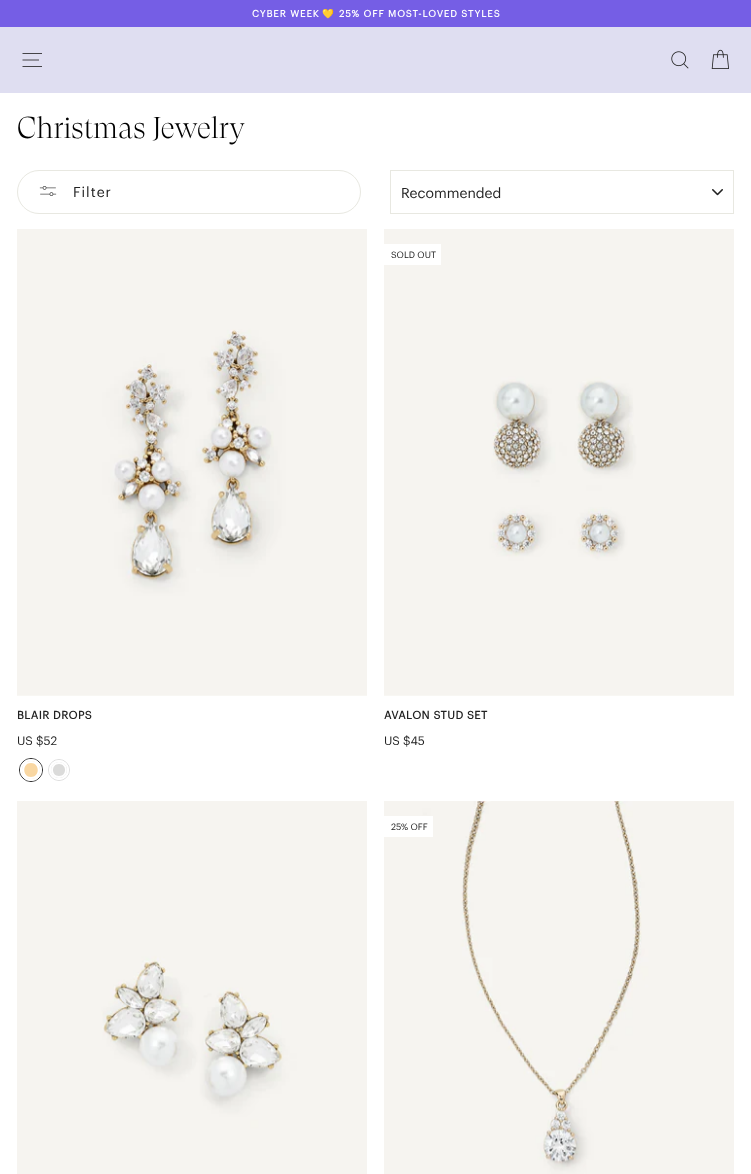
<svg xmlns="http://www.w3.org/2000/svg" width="751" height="1174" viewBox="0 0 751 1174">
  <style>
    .t1 { font: bold 9.5px Graphik; letter-spacing: 1px; fill: #fff; }
    .t2 { font: bold 9.5px Noto Color Emoji; letter-spacing: 1px; fill: #fff; }
    .t3 { font: 300 30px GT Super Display; fill: #000; }
    .t4 { font: 14px Graphik; letter-spacing: 1px; fill: #222; }
    .t5 { font: 14px Graphik; fill: #222; }
    .t6 { font: bold 11px Graphik; letter-spacing: 0.5px; fill: #222; }
    .t7 { font: 12px Graphik; fill: #222; }
    .t8 { font: 9px Graphik; fill: #222; }
  </style>
  <rect width="100%" height="100%" fill="#fff"/>
  <rect x="0" y="0" width="751" height="27" fill="#755ee5"/>
  <text x="252" y="17" class="t1">CYBER WEEK</text>
  <text x="322" y="17" class="t2">💛</text>
  <text x="339" y="17" class="t1">25% OFF MOST-LOVED STYLES</text>
  <rect x="0" y="27" width="751" height="66" fill="#dfdef1"/>
  <path d="M22.5 53.5H42M22.5 60H39M22.5 66.5H42" fill="none" stroke="#1d1d1d" stroke-width="0.8"/>
  <image x="671" y="51" width="18" height="18" href="images/1.png"/>
  <image x="711" y="49" width="18" height="20" href="images/2.png"/>
  <text x="17" y="138" class="t3">Christmas Jewelry</text>
  <rect x="17.5" y="170.5" width="343" height="43" rx="21.5" fill="none" stroke="#e8e8e1"/>
  <image x="39" y="186" width="18" height="10" href="images/3.png"/>
  <text x="73" y="197" class="t4">Filter</text>
  <image x="712" y="189" width="11" height="7" href="images/4.png"/>
  <rect x="390.5" y="170.5" width="343" height="43" fill="none" stroke="#e8e8e1"/>
  <text x="401" y="198" class="t5">Recommended</text>
  <image x="17" y="229" width="350" height="467" href="images/5.png"/>
  <text x="17" y="719" class="t6">BLAIR DROPS</text>
  <text x="17" y="745" class="t7">US $52</text>
  <circle cx="31" cy="770" r="11.5" fill="none" stroke="#222"/>
  <circle cx="31" cy="770" r="10" fill="#f9d7a2" stroke="#fff" stroke-width="2"/>
  <path d="M31 761C19 761 19 779 31 779C43 779 43 761 31 761ZM31 763C22 763 22 777 31 777C40 777 40 763 31 763Z" fill="#fff" fill-rule="evenodd"/>
  <circle cx="59" cy="770" r="10.5" fill="none" stroke="#ddd"/>
  <circle cx="59" cy="770" r="9" fill="#dbdbda" stroke="#fff" stroke-width="2"/>
  <path d="M59 762C48.5 762 48.5 778 59 778C69.5 778 69.5 762 59 762ZM59 764C51 764 51 776 59 776C67 776 67 764 59 764Z" fill="#fff" fill-rule="evenodd"/>
  <image x="384" y="229" width="350" height="467" href="images/6.png"/>
  <rect x="384" y="244" width="57" height="21" fill="#fff"/>
  <text x="391" y="258" class="t8">SOLD OUT</text>
  <text x="384" y="719" class="t6">AVALON STUD SET</text>
  <text x="384" y="745" class="t7">US $45</text>
  <image x="17" y="801" width="350" height="373" href="images/7.png"/>
  <image x="384" y="801" width="350" height="373" href="images/8.png"/>
  <rect x="384" y="816" width="49" height="21" fill="#fff"/>
  <text x="391" y="830" class="t8">25% OFF</text>
</svg>
